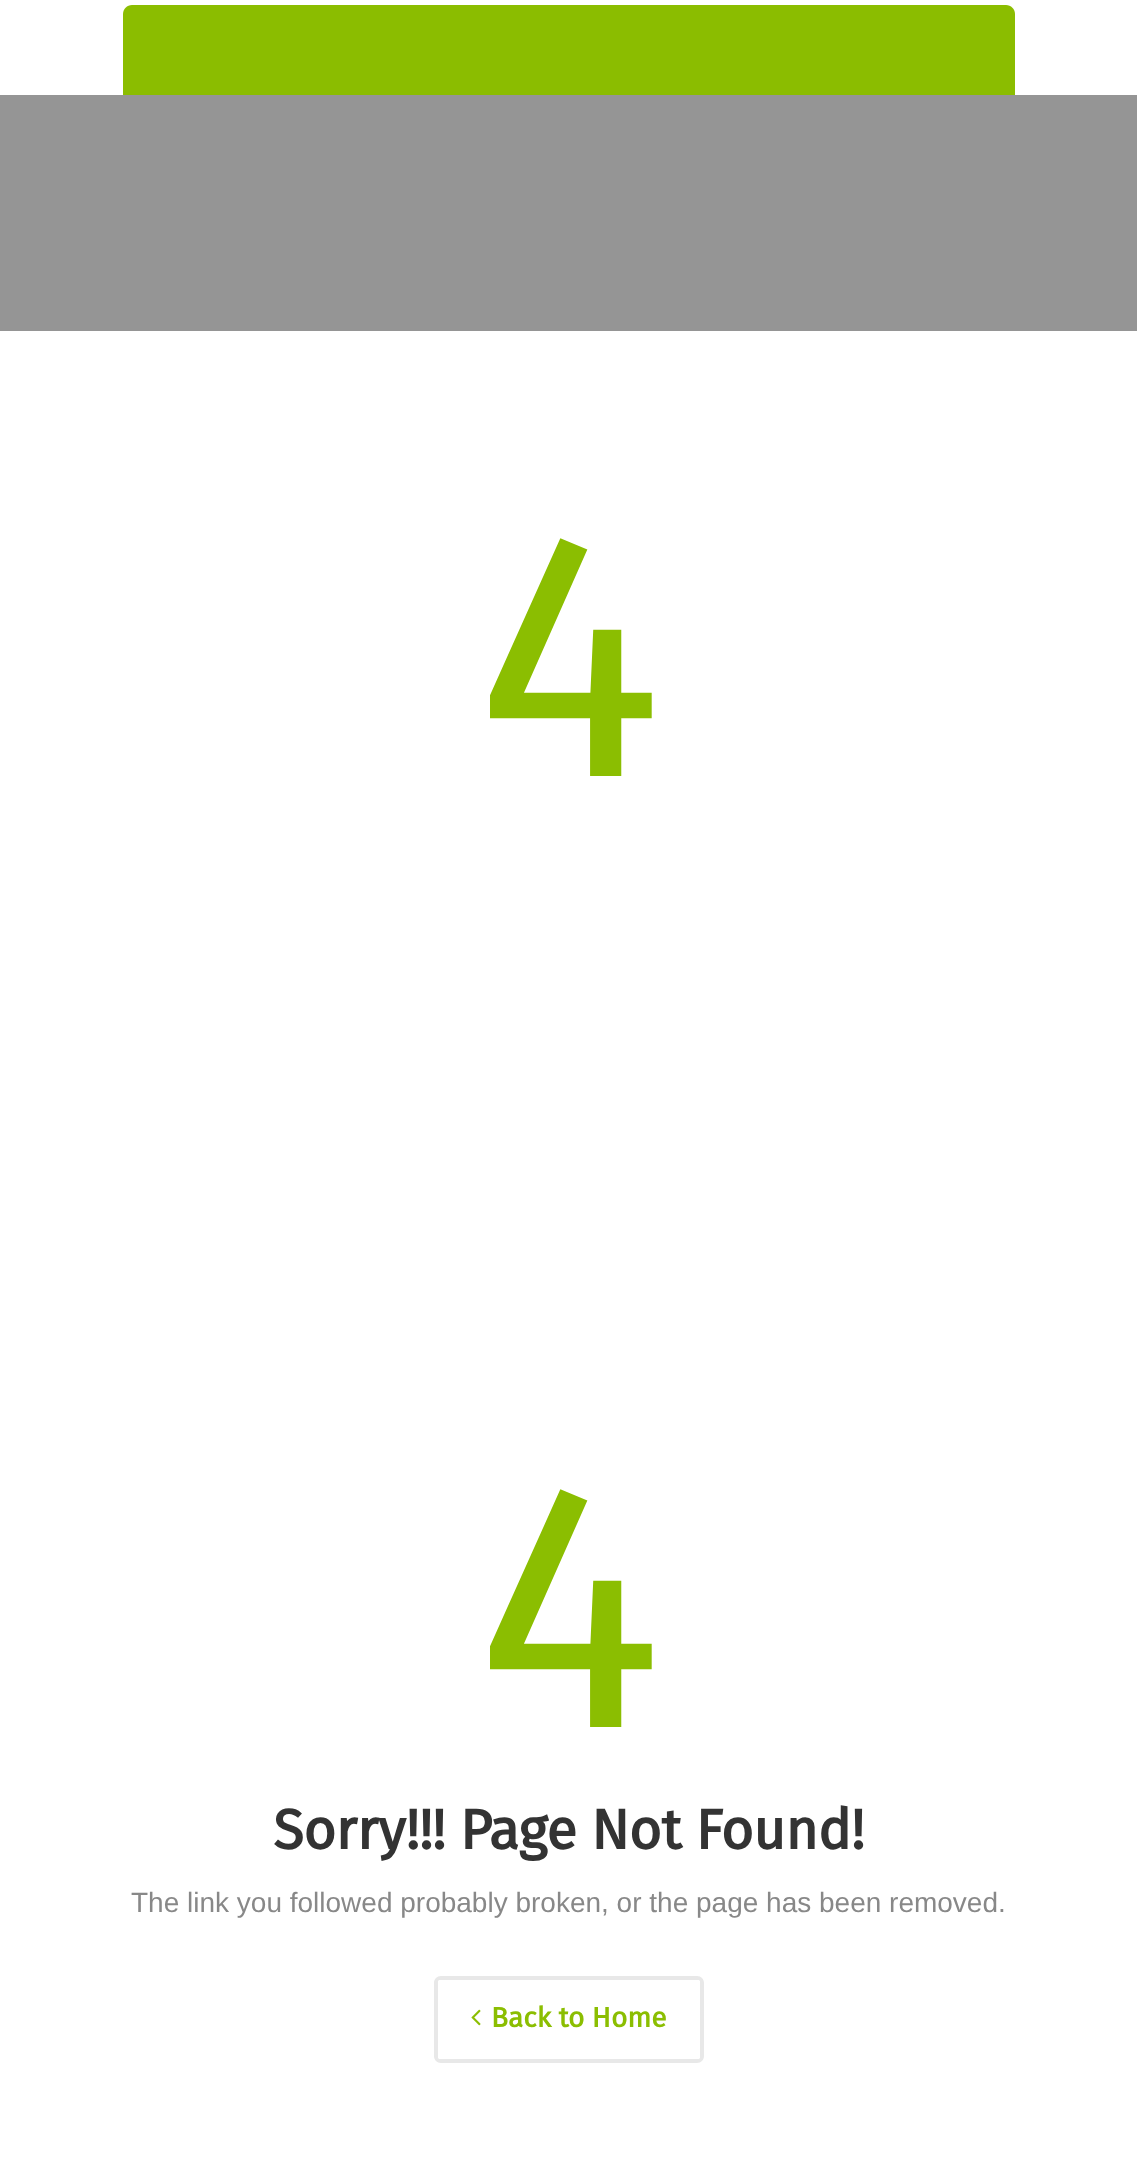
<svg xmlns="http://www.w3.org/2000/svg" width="1137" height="2175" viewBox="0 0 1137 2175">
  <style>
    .t1 { font: 350px Fira Sans; fill: #8bbe01; }
    .t2 { font: bold 56px Fira Sans; letter-spacing: -0.35px; fill: #333; }
    .t3 { font: 28px Liberation Sans; fill: #888; }
    .t4 { font: bold 28px Fira Sans; fill: #8bbe01; }
  </style>
  <rect width="100%" height="100%" fill="#fff"/>
  <path d="M132 5H1006C1011 5 1015 9 1015 14V95H123V14C123 9 127 5 132 5Z" fill="#8bbd00"/>
  <rect x="0" y="95" width="1137" height="236" fill="#959595"/>
  <text x="476" y="776" class="t1">4</text>
  <text x="476" y="1727" class="t1">4</text>
  <text x="273" y="1849" class="t2">Sorry!!! Page Not Found!</text>
  <text x="131" y="1912" class="t3">The link you followed probably broken, or the page has been removed.</text>
  <path d="M441 1976C437 1976 434 1979 434 1983V2056C434 2060 437 2063 441 2063H697C701 2063 704 2060 704 2056V1983C704 1979 701 1976 697 1976ZM439 1980L438 1981V2058L439 2059H699L700 2058V1981L699 1980Z" fill="#e8e8e8" fill-rule="evenodd"/>
  <image x="471" y="2009" width="10" height="17" href="images/1.png"/>
  <text x="491" y="2027" class="t4">Back to Home</text>
</svg>
